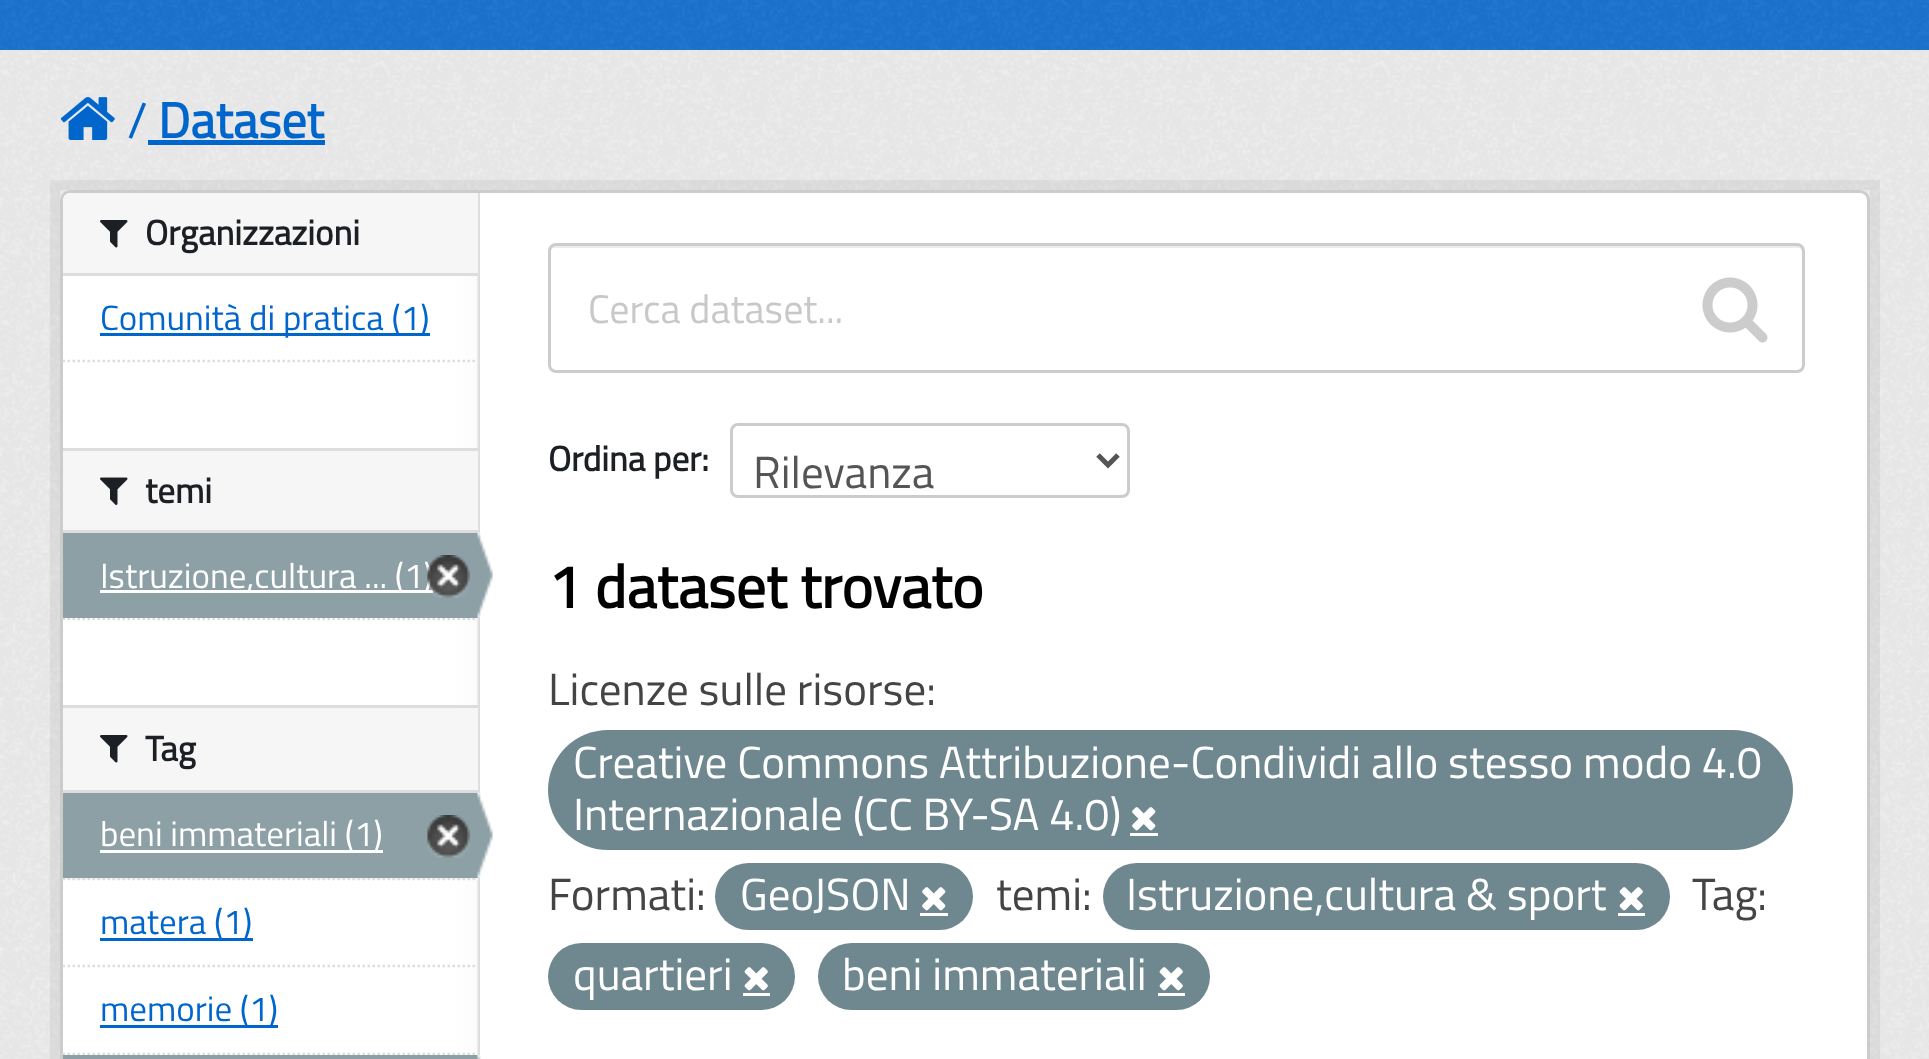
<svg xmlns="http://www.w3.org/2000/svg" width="1929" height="1059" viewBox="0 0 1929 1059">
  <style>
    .t1 { font: 50px Titillium Web; fill: #06c; }
    .t2 { font: bold 50px Titillium Web; fill: #06c; }
    .t3 { font: bold 35px Titillium Web; fill: #1c2024; }
    .t4 { font: 35px Titillium Web; fill: #06c; }
    .t5 { font: 35px Titillium Web; fill: #fff; }
    .t6 { font: 40px Titillium Web; fill: #c8c8c8; }
    .t7 { font: 45px Titillium Web; fill: #555; }
    .t8 { font: bold 60px Titillium Web; fill: #000; }
    .t9 { font: 45px Titillium Web; fill: #444; }
    .t10 { font: 45px Titillium Web; fill: #fff; }
  </style>
  <rect width="100%" height="100%" fill="#1c75d1"/>
  <image x="0" y="0" width="1929" height="50" href="images/1.png"/>
  <rect x="0" y="50" width="1929" height="1009" fill="#eee"/>
  <image x="0" y="50" width="1929" height="1009" href="images/2.png"/>
  <image x="60" y="97" width="55" height="43" href="images/3.png"/>
  <text x="127" y="138" class="t1">/</text>
  <text x="158" y="138" class="t2">Dataset</text>
  <rect x="148" y="140" width="177" height="5" fill="#06c"/>
  <rect x="55" y="185" width="1820" height="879" fill="none" stroke="#0000000d" stroke-width="10"/>
  <rect x="60" y="190" width="1810" height="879" rx="10" fill="#fff"/>
  <image x="60" y="190" width="420" height="869" href="images/4.png"/>
  <rect x="61.5" y="191.5" width="1807" height="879" rx="8.5" fill="none" stroke="#ccc" stroke-width="3"/>
  <path d="M71 193H478V275H63V201C63 196.5 66.5 193 71 193Z" fill="#f6f6f6"/>
  <rect x="63" y="273" width="415" height="3" fill="#ddd"/>
  <image x="100" y="220" width="28" height="28" href="images/5.png"/>
  <text x="145" y="245" class="t3">Organizzazioni</text>
  <rect x="100" y="333" width="330" height="3" fill="#06c"/>
  <text x="100" y="330" class="t4">Comunità di pratica (1)</text>
  <path d="M62.5 361H477.5" fill="none" stroke="#ddd" stroke-width="2.5" stroke-dasharray="2.5 2.5"/>
  <rect x="63" y="451" width="415" height="79" fill="#f6f6f6"/>
  <rect x="63" y="448" width="415" height="3" fill="#ddd"/>
  <rect x="63" y="530" width="415" height="3" fill="#ddd"/>
  <image x="100" y="477" width="28" height="28" href="images/6.png"/>
  <text x="145" y="503" class="t3">temi</text>
  <path d="M62.5 619H477.5" fill="none" stroke="#ddd" stroke-width="2.5" stroke-dasharray="2.5 2.5"/>
  <rect x="63" y="533" width="415" height="85" fill="#8ca0a6"/>
  <rect x="100" y="590" width="333" height="3" fill="#fff"/>
  <text x="100" y="588" class="t5">Istruzione,cultura ... (1)</text>
  <image x="427" y="555" width="43" height="43" href="images/7.png"/>
  <image x="477" y="532" width="16" height="86" href="images/8.png"/>
  <rect x="63" y="708" width="415" height="82" fill="#f6f6f6"/>
  <rect x="63" y="705" width="415" height="3" fill="#ddd"/>
  <rect x="63" y="790" width="415" height="3" fill="#ddd"/>
  <image x="100" y="735" width="28" height="28" href="images/5.png"/>
  <text x="145" y="761" class="t3">Tag</text>
  <rect x="65" y="878" width="413" height="2" fill="#f6f6f6"/>
  <path d="M62.5 879H477.5" fill="none" stroke="#ddd" stroke-width="2.5" stroke-dasharray="2.5 2.5"/>
  <rect x="63" y="793" width="415" height="85" fill="#8ca0a6"/>
  <rect x="100" y="850" width="283" height="3" fill="#fff"/>
  <text x="100" y="846" class="t5">beni immateriali (1)</text>
  <image x="427" y="815" width="43" height="43" href="images/9.png"/>
  <image x="477" y="792" width="16" height="86" href="images/8.png"/>
  <path d="M62.5 966H477.5" fill="none" stroke="#ddd" stroke-width="2.5" stroke-dasharray="2.5 2.5"/>
  <rect x="100" y="938" width="153" height="3" fill="#06c"/>
  <text x="100" y="934" class="t4">matera (1)</text>
  <path d="M62.5 1054H477.5" fill="none" stroke="#ddd" stroke-width="2.5" stroke-dasharray="2.5 2.5"/>
  <rect x="100" y="1025" width="178" height="3" fill="#06c"/>
  <text x="100" y="1021" class="t4">memorie (1)</text>
  <rect x="63" y="1055" width="415" height="4" fill="#8ca0a6"/>
  <image x="477" y="1055" width="4" height="4" href="images/10.png"/>
  <path d="M555 248H1798C1800 248 1802 250 1802 252V368C1803 367 1803 366 1803 365V250C1803 247 1801 245 1798 245H555C552 245 550 247 550 250V252C550 250 552 248 555 248Z" fill="#ececec"/>
  <rect x="549.5" y="244.5" width="1254" height="127" rx="6.5" fill="none" stroke="#ccc" stroke-width="3"/>
  <text x="588" y="323" class="t6">Cerca dataset...</text>
  <image x="1702" y="277" width="66" height="66" href="images/11.png"/>
  <text x="548" y="471" class="t3">Ordina per:</text>
  <rect x="731.5" y="424.5" width="397" height="72" rx="6.5" fill="none" stroke="#ccc" stroke-width="3"/>
  <path d="M1098 455L1108 465L1118 455" fill="none" stroke="#555" stroke-width="5"/>
  <text x="753" y="488" class="t7">Rilevanza</text>
  <text x="548" y="608" class="t8">1 dataset trovato</text>
  <text x="548" y="705" class="t9">Licenze sulle risorse:</text>
  <rect x="548" y="730" width="1245" height="120" rx="60" fill="#6f8890"/>
  <text x="573" y="778" class="t10">Creative Commons Attribuzione-Condividi allo stesso modo 4.0</text>
  <text x="573" y="830" class="t10">Internazionale (CC BY-SA 4.0)</text>
  <rect x="1130" y="833" width="28" height="3" fill="#fff"/>
  <image x="1132" y="807" width="24" height="24" href="images/12.png"/>
  <text x="548" y="910" class="t9">Formati:</text>
  <rect x="715" y="863" width="258" height="67" rx="33.5" fill="#6f8890"/>
  <text x="740" y="910" class="t10">GeoJSON</text>
  <rect x="920" y="913" width="28" height="3" fill="#fff"/>
  <image x="922" y="887" width="24" height="24" href="images/12.png"/>
  <text x="996" y="910" class="t9">temi:</text>
  <rect x="1103" y="863" width="567" height="67" rx="33.5" fill="#6f8890"/>
  <text x="1126" y="910" class="t10">Istruzione,cultura &amp; sport</text>
  <rect x="1618" y="913" width="27" height="3" fill="#fff"/>
  <image x="1619" y="887" width="24" height="24" href="images/13.png"/>
  <text x="1692" y="910" class="t9">Tag:</text>
  <rect x="548" y="943" width="247" height="67" rx="33.5" fill="#6f8890"/>
  <text x="573" y="990" class="t10">quartieri</text>
  <rect x="743" y="993" width="27" height="3" fill="#fff"/>
  <image x="744" y="967" width="24" height="24" href="images/13.png"/>
  <rect x="818" y="943" width="392" height="67" rx="33.5" fill="#6f8890"/>
  <text x="842" y="990" class="t10">beni immateriali</text>
  <rect x="1158" y="993" width="27" height="3" fill="#fff"/>
  <image x="1159" y="967" width="24" height="24" href="images/13.png"/>
</svg>
